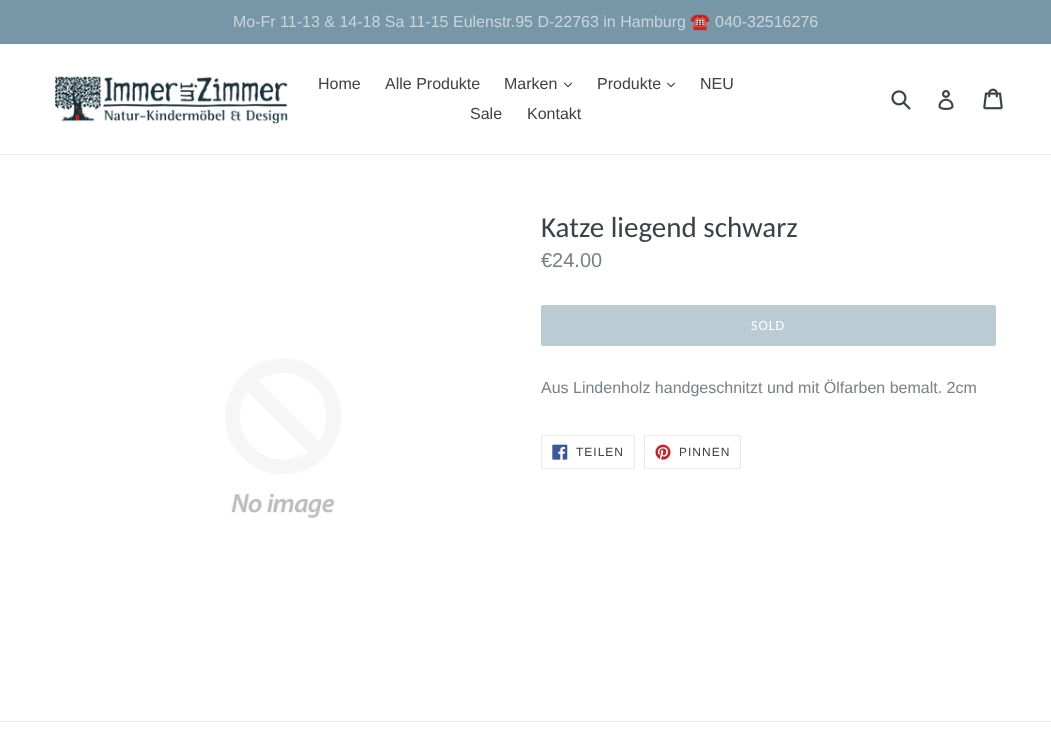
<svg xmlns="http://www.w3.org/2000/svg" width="1051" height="729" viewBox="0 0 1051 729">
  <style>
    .t1 { font: 16px Liberation Sans; fill: #c9d5dc; }
    .t2 { font: 16px Noto Color Emoji; fill: #c9d5dc; }
    .t3 { font: 16px Liberation Sans; fill: #3d4246; }
    .t4 { font: 29px Carlito; fill: #3d4246; }
    .t5 { font: 20px Liberation Sans; fill: #788188; }
    .t6 { font: 14px Carlito; letter-spacing: 1px; fill: #fff; }
    .t7 { font: 16px Liberation Sans; fill: #788188; }
    .t8 { font: 12px Liberation Sans; letter-spacing: 1px; fill: #3d4246; }
  </style>
  <rect width="100%" height="100%" fill="#fff"/>
  <rect x="0" y="0" width="1051" height="44" fill="#7796a8"/>
  <text x="233" y="27" class="t1">Mo-Fr 11-13 &amp; 14-18 Sa 11-15 Eulenstr.95 D-22763 in Hamburg</text>
  <text x="690" y="27" class="t2">☎️</text>
  <text x="715" y="27" class="t1">040-32516276</text>
  <rect x="0" y="154" width="1051" height="1" fill="#e8e9eb"/>
  <image x="55" y="76" width="233" height="48" href="images/1.png"/>
  <text x="318" y="89" class="t3">Home</text>
  <text x="385" y="89" class="t3">Alle Produkte</text>
  <text x="504" y="89" class="t3">Marken</text>
  <image x="564" y="82" width="8" height="6" href="images/2.png"/>
  <text x="597" y="89" class="t3">Produkte</text>
  <image x="667" y="82" width="8" height="6" href="images/2.png"/>
  <text x="700" y="89" class="t3">NEU</text>
  <text x="470" y="119" class="t3">Sale</text>
  <text x="527" y="119" class="t3">Kontakt</text>
  <image x="891" y="90" width="20" height="20" href="images/3.png"/>
  <image x="938" y="90" width="16" height="20" href="images/4.png"/>
  <image x="983" y="88" width="20" height="22" href="images/5.png"/>
  <image x="225" y="358" width="116" height="160" href="images/6.png"/>
  <text x="541" y="237" class="t4">Katze liegend schwarz</text>
  <text x="541" y="267" class="t5">€24.00</text>
  <rect x="541" y="305" width="455" height="41" rx="2" fill="#bbcbd4"/>
  <text x="751" y="330" class="t6">SOLD</text>
  <text x="541" y="393" class="t7">Aus Lindenholz handgeschnitzt und mit Ölfarben bemalt. 2cm</text>
  <rect x="541.5" y="435.5" width="93" height="33" rx="1.5" fill="none" stroke="#e8e9eb"/>
  <image x="552" y="444" width="16" height="16" href="images/7.png"/>
  <text x="576" y="456" class="t8">TEILEN</text>
  <rect x="644.5" y="435.5" width="96" height="33" rx="1.5" fill="none" stroke="#e8e9eb"/>
  <image x="655" y="444" width="16" height="16" href="images/8.png"/>
  <text x="679" y="456" class="t8">PINNEN</text>
  <rect x="0" y="721" width="1051" height="1" fill="#e8e9eb"/>
</svg>
